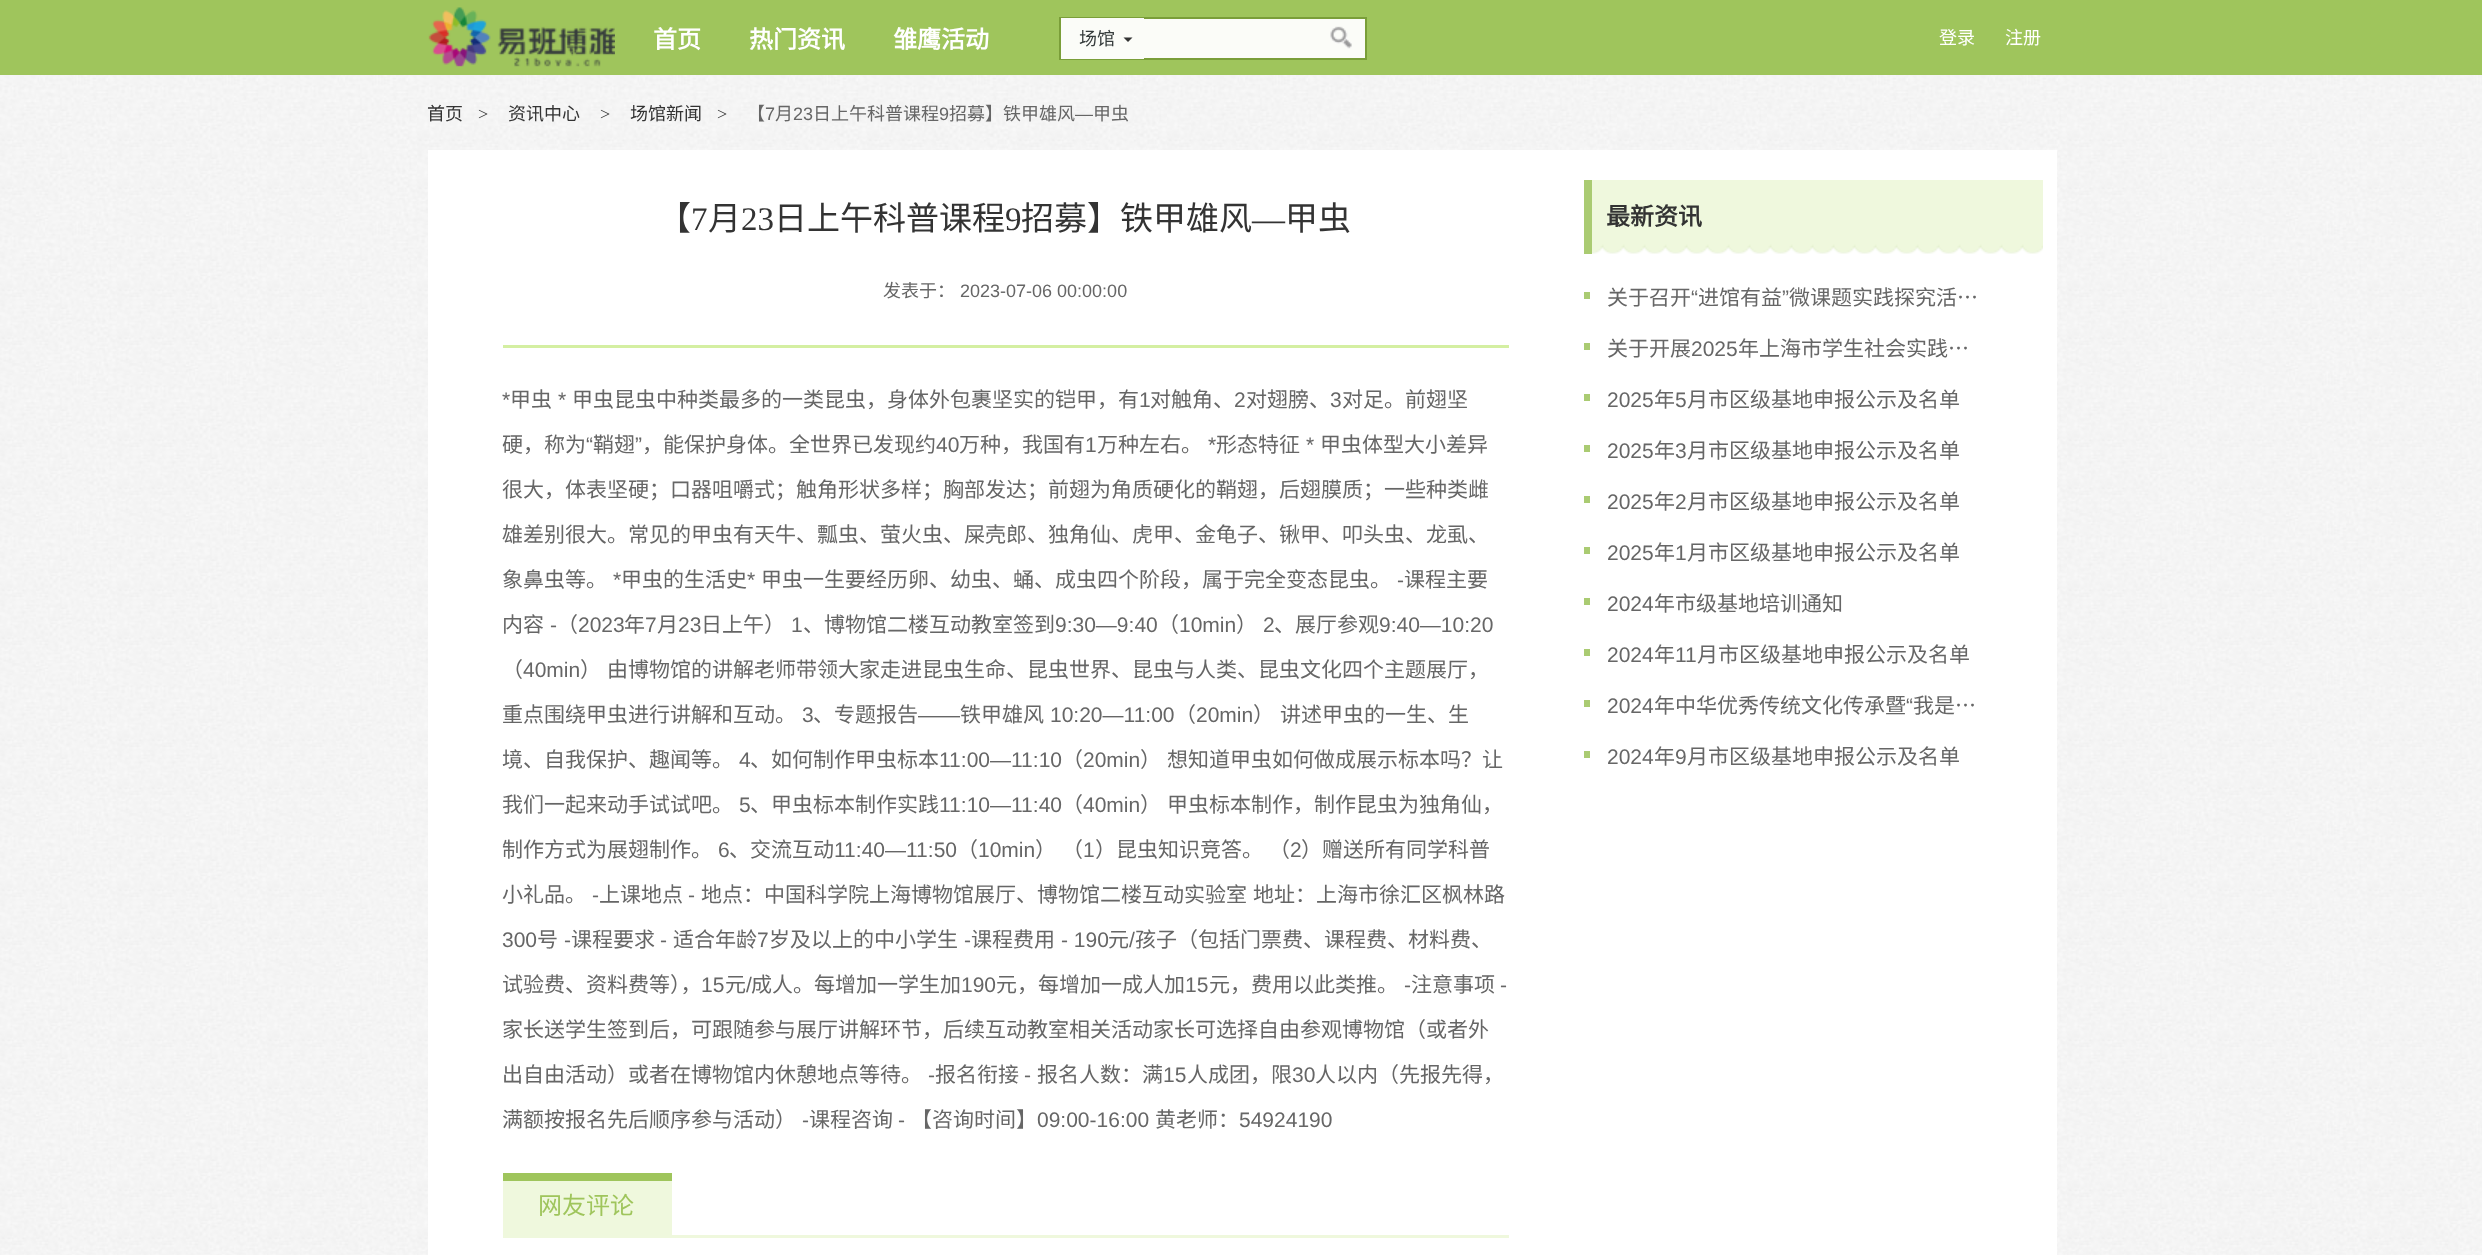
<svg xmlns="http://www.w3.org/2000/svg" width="2482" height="1255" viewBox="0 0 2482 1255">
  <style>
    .t1 { font: bold 24px Noto Sans CJK SC; fill: #fff; }
    .t2 { font: 18px Noto Sans CJK SC; fill: #363c3c; }
    .t3 { font: 18px Noto Sans CJK SC; fill: #fff; }
    .t4 { font: 18px Noto Sans CJK SC; fill: #333; }
    .t5 { font: 18px Liberation Serif; fill: #333; }
    .t6 { font: 18px Noto Sans CJK SC; fill: #666; }
    .t7 { font: 18px Liberation Sans; fill: #666; }
    .t8 { font: 33px Noto Sans CJK SC; fill: #333; }
    .t9 { font: 33px Liberation Serif; fill: #333; }
    .t10 { font: 21px Liberation Sans; fill: #666; }
    .t11 { font: 21px Noto Sans CJK SC; fill: #666; }
    .t12 { font: 24px Noto Sans CJK SC; fill: #9fc55c; }
    .t13 { font: bold 24px Noto Sans CJK SC; fill: #333; }
  </style>
  <rect width="100%" height="100%" fill="#fff"/>
  <image x="0" y="75" width="2482" height="1180" href="images/1.png"/>
  <rect x="0" y="0" width="2482" height="75" fill="#9fc55c"/>
  <image x="428" y="7" width="187" height="60" href="images/2.png"/>
  <text x="653" y="48" class="t1">首页</text>
  <text x="749" y="48" class="t1">热门资讯</text>
  <text x="893" y="48" class="t1">雏鹰活动</text>
  <rect x="1144" y="19" width="221" height="39" fill="#fbfcf8"/>
  <rect x="1060" y="18" width="306" height="41" fill="none" stroke="#7a9e39" stroke-width="2"/>
  <rect x="1061" y="18" width="83" height="41" fill="#fbfcf8"/>
  <text x="1079" y="45" class="t2">场馆</text>
  <path d="M1123.5 37.5H1132.5L1128 42Z" fill="#333"/>
  <image x="1330" y="26" width="22" height="23" href="images/3.png"/>
  <text x="1939" y="44" class="t3">登录</text>
  <text x="2005" y="44" class="t3">注册</text>
  <text x="427" y="120" class="t4">首页</text>
  <text x="478" y="120" class="t5">&gt;</text>
  <text x="508" y="120" class="t4">资讯中心</text>
  <text x="600" y="120" class="t5">&gt;</text>
  <text x="630" y="120" class="t4">场馆新闻</text>
  <text x="717" y="120" class="t5">&gt;</text>
  <text x="747" y="120" class="t6">【</text>
  <text x="765" y="120" class="t7">7</text>
  <text x="775" y="120" class="t6">月</text>
  <text x="793" y="120" class="t7">23</text>
  <text x="813" y="120" class="t6">日上午科普课程</text>
  <text x="939" y="120" class="t7">9</text>
  <text x="949" y="120" class="t6">招募】铁甲雄风</text>
  <text x="1075" y="120" class="t7">—</text>
  <text x="1093" y="120" class="t6">甲虫</text>
  <rect x="428" y="150" width="1629" height="1105" fill="#fff"/>
  <rect x="503" y="345" width="1006" height="3" fill="#d4efa2"/>
  <text x="658" y="230" class="t8">【</text>
  <text x="691" y="230" class="t9">7</text>
  <text x="708" y="230" class="t8">月</text>
  <text x="741" y="230" class="t9">23</text>
  <text x="774" y="230" class="t8">日上午科普课程</text>
  <text x="1005" y="230" class="t9">9</text>
  <text x="1021" y="230" class="t8">招募】铁甲雄风</text>
  <text x="1252" y="230" class="t9">—</text>
  <text x="1285" y="230" class="t8">甲虫</text>
  <text x="883" y="297" class="t6">发表于：</text>
  <text x="960" y="297" class="t7">2023-07-06 00:00:00</text>
  <text x="502" y="407" class="t10">*</text>
  <text x="510" y="407" class="t11">甲虫</text>
  <text x="558" y="407" class="t10">*</text>
  <text x="572" y="407" class="t11">甲虫昆虫中种类最多的一类昆虫，身体外包裹坚实的铠甲，有</text>
  <text x="1139" y="407" class="t10">1</text>
  <text x="1150" y="407" class="t11">对触角、</text>
  <text x="1234" y="407" class="t10">2</text>
  <text x="1246" y="407" class="t11">对翅膀、</text>
  <text x="1330" y="407" class="t10">3</text>
  <text x="1342" y="407" class="t11">对足。前翅坚</text>
  <text x="502" y="452" class="t11">硬，称为</text>
  <text x="586" y="452" class="t10">“</text>
  <text x="593" y="452" class="t11">鞘翅</text>
  <text x="635" y="452" class="t10">”</text>
  <text x="642" y="452" class="t11">，能保护身体。全世界已发现约</text>
  <text x="936" y="452" class="t10">40</text>
  <text x="959" y="452" class="t11">万种，我国有</text>
  <text x="1085" y="452" class="t10">1</text>
  <text x="1097" y="452" class="t11">万种左右。</text>
  <text x="1208" y="452" class="t10">*</text>
  <text x="1216" y="452" class="t11">形态特征</text>
  <text x="1306" y="452" class="t10">*</text>
  <text x="1320" y="452" class="t11">甲虫体型大小差异</text>
  <text x="502" y="497" class="t11">很大，体表坚硬；口器咀嚼式；触角形状多样；胸部发达；前翅为角质硬化的鞘翅，后翅膜质；一些种类雌</text>
  <text x="502" y="542" class="t11">雄差别很大。常见的甲虫有天牛、瓢虫、萤火虫、屎壳郎、独角仙、虎甲、金龟子、锹甲、叩头虫、龙虱、</text>
  <text x="502" y="587" class="t11">象鼻虫等。</text>
  <text x="613" y="587" class="t10">*</text>
  <text x="621" y="587" class="t11">甲虫的生活史</text>
  <text x="747" y="587" class="t10">*</text>
  <text x="761" y="587" class="t11">甲虫一生要经历卵、幼虫、蛹、成虫四个阶段，属于完全变态昆虫。</text>
  <text x="1404" y="587" class="t11">课程主要</text>
  <text x="1397" y="587" class="t10">-</text>
  <text x="502" y="632" class="t11">内容</text>
  <text x="550" y="632" class="t10">-</text>
  <text x="557" y="632" class="t11">（</text>
  <text x="578" y="632" class="t10">2023</text>
  <text x="624" y="632" class="t11">年</text>
  <text x="645" y="632" class="t10">7</text>
  <text x="657" y="632" class="t11">月</text>
  <text x="678" y="632" class="t10">23</text>
  <text x="701" y="632" class="t11">日上午）</text>
  <text x="791" y="632" class="t10">1</text>
  <text x="803" y="632" class="t11">、博物馆二楼互动教室签到</text>
  <text x="1055" y="632" class="t10">9:30—9:40</text>
  <text x="1158" y="632" class="t11">（</text>
  <text x="1179" y="632" class="t10">10min</text>
  <text x="1236" y="632" class="t11">）</text>
  <text x="1263" y="632" class="t10">2</text>
  <text x="1274" y="632" class="t11">、展厅参观</text>
  <text x="1379" y="632" class="t10">9:40—10:20</text>
  <text x="502" y="677" class="t11">（</text>
  <text x="523" y="677" class="t10">40min</text>
  <text x="580" y="677" class="t11">）</text>
  <text x="607" y="677" class="t11">由博物馆的讲解老师带领大家走进昆虫生命、昆虫世界、昆虫与人类、昆虫文化四个主题展厅，</text>
  <text x="502" y="722" class="t11">重点围绕甲虫进行讲解和互动。</text>
  <text x="802" y="722" class="t10">3</text>
  <text x="813" y="722" class="t11">、专题报告</text>
  <text x="918" y="722" class="t10">——</text>
  <text x="960" y="722" class="t11">铁甲雄风</text>
  <text x="1050" y="722" class="t10">10:20—11:00</text>
  <text x="1175" y="722" class="t11">（</text>
  <text x="1196" y="722" class="t10">20min</text>
  <text x="1253" y="722" class="t11">）</text>
  <text x="1280" y="722" class="t11">讲述甲虫的一生、生</text>
  <text x="502" y="767" class="t11">境、自我保护、趣闻等。</text>
  <text x="739" y="767" class="t10">4</text>
  <text x="750" y="767" class="t11">、如何制作甲虫标本</text>
  <text x="939" y="767" class="t10">11:00—11:10</text>
  <text x="1062" y="767" class="t11">（</text>
  <text x="1083" y="767" class="t10">20min</text>
  <text x="1140" y="767" class="t11">）</text>
  <text x="1167" y="767" class="t11">想知道甲虫如何做成展示标本吗？让</text>
  <text x="502" y="812" class="t11">我们一起来动手试试吧。</text>
  <text x="739" y="812" class="t10">5</text>
  <text x="750" y="812" class="t11">、甲虫标本制作实践</text>
  <text x="939" y="812" class="t10">11:10—11:40</text>
  <text x="1062" y="812" class="t11">（</text>
  <text x="1083" y="812" class="t10">40min</text>
  <text x="1140" y="812" class="t11">）</text>
  <text x="1167" y="812" class="t11">甲虫标本制作，制作昆虫为独角仙，</text>
  <text x="502" y="857" class="t11">制作方式为展翅制作。</text>
  <text x="718" y="857" class="t10">6</text>
  <text x="729" y="857" class="t11">、交流互动</text>
  <text x="834" y="857" class="t10">11:40—11:50</text>
  <text x="957" y="857" class="t11">（</text>
  <text x="978" y="857" class="t10">10min</text>
  <text x="1035" y="857" class="t11">）</text>
  <text x="1062" y="857" class="t11">（</text>
  <text x="1083" y="857" class="t10">1</text>
  <text x="1095" y="857" class="t11">）昆虫知识竞答。</text>
  <text x="1269" y="857" class="t11">（</text>
  <text x="1290" y="857" class="t10">2</text>
  <text x="1301" y="857" class="t11">）赠送所有同学科普</text>
  <text x="502" y="902" class="t11">小礼品。</text>
  <text x="592" y="902" class="t10">-</text>
  <text x="599" y="902" class="t11">上课地点</text>
  <text x="688" y="902" class="t10">-</text>
  <text x="701" y="902" class="t11">地点：中国科学院上海博物馆展厅、博物馆二楼互动实验室</text>
  <text x="1253" y="902" class="t11">地址：上海市徐汇区枫林路</text>
  <text x="502" y="947" class="t10">300</text>
  <text x="537" y="947" class="t11">号</text>
  <text x="564" y="947" class="t10">-</text>
  <text x="571" y="947" class="t11">课程要求</text>
  <text x="660" y="947" class="t10">-</text>
  <text x="673" y="947" class="t11">适合年龄</text>
  <text x="757" y="947" class="t10">7</text>
  <text x="769" y="947" class="t11">岁及以上的中小学生</text>
  <text x="964" y="947" class="t10">-</text>
  <text x="971" y="947" class="t11">课程费用</text>
  <text x="1061" y="947" class="t10">- 190</text>
  <text x="1108" y="947" class="t11">元</text>
  <text x="1129" y="947" class="t10">/</text>
  <text x="1135" y="947" class="t11">孩子（包括门票费、课程费、材料费、</text>
  <text x="502" y="992" class="t11">试验费、资料费等），</text>
  <text x="701" y="992" class="t10">15</text>
  <text x="725" y="992" class="t11">元</text>
  <text x="746" y="992" class="t10">/</text>
  <text x="751" y="992" class="t11">成人。每增加一学生加</text>
  <text x="961" y="992" class="t10">190</text>
  <text x="996" y="992" class="t11">元，每增加一成人加</text>
  <text x="1185" y="992" class="t10">15</text>
  <text x="1209" y="992" class="t11">元，费用以此类推。</text>
  <text x="1404" y="992" class="t10">-</text>
  <text x="1411" y="992" class="t11">注意事项</text>
  <text x="1500" y="992" class="t10">-</text>
  <text x="502" y="1037" class="t11">家长送学生签到后，可跟随参与展厅讲解环节，后续互动教室相关活动家长可选择自由参观博物馆（或者外</text>
  <text x="502" y="1082" class="t11">出自由活动）或者在博物馆内休憩地点等待。</text>
  <text x="928" y="1082" class="t10">-</text>
  <text x="935" y="1082" class="t11">报名衔接</text>
  <text x="1024" y="1082" class="t10">-</text>
  <text x="1037" y="1082" class="t11">报名人数：满</text>
  <text x="1163" y="1082" class="t10">15</text>
  <text x="1187" y="1082" class="t11">人成团，限</text>
  <text x="1292" y="1082" class="t10">30</text>
  <text x="1315" y="1082" class="t11">人以内（先报先得，</text>
  <text x="502" y="1127" class="t11">满额按报名先后顺序参与活动）</text>
  <text x="802" y="1127" class="t10">-</text>
  <text x="809" y="1127" class="t11">课程咨询</text>
  <text x="898" y="1127" class="t10">-</text>
  <text x="911" y="1127" class="t11">【咨询时间】</text>
  <text x="1037" y="1127" class="t10">09:00-16:00</text>
  <text x="1155" y="1127" class="t11">黄老师：</text>
  <text x="1239" y="1127" class="t10">54924190</text>
  <rect x="503" y="1235" width="1006" height="3" fill="#eff8dd"/>
  <rect x="503" y="1181" width="169" height="54" fill="#eff8dd"/>
  <rect x="503" y="1173" width="169" height="8" fill="#9fc55c"/>
  <text x="538" y="1214" class="t12">网友评论</text>
  <image x="1592" y="180" width="451" height="74" href="images/4.png"/>
  <rect x="1584" y="180" width="8" height="74" fill="#aacb72"/>
  <text x="1606" y="225" class="t13">最新资讯</text>
  <rect x="1584" y="292" width="6" height="7" fill="#aacb72"/>
  <text x="1607" y="305" class="t11">关于召开</text>
  <text x="1691" y="305" class="t10">“</text>
  <text x="1698" y="305" class="t11">进馆有益</text>
  <text x="1782" y="305" class="t10">”</text>
  <text x="1789" y="305" class="t11">微课题实践探究活…</text>
  <rect x="1584" y="343" width="6" height="7" fill="#aacb72"/>
  <text x="1607" y="356" class="t11">关于开展</text>
  <text x="1691" y="356" class="t10">2025</text>
  <text x="1738" y="356" class="t11">年上海市学生社会实践…</text>
  <rect x="1584" y="394" width="6" height="7" fill="#aacb72"/>
  <text x="1607" y="407" class="t10">2025</text>
  <text x="1654" y="407" class="t11">年</text>
  <text x="1675" y="407" class="t10">5</text>
  <text x="1687" y="407" class="t11">月市区级基地申报公示及名单</text>
  <rect x="1584" y="445" width="6" height="7" fill="#aacb72"/>
  <text x="1607" y="458" class="t10">2025</text>
  <text x="1654" y="458" class="t11">年</text>
  <text x="1675" y="458" class="t10">3</text>
  <text x="1687" y="458" class="t11">月市区级基地申报公示及名单</text>
  <rect x="1584" y="496" width="6" height="7" fill="#aacb72"/>
  <text x="1607" y="509" class="t10">2025</text>
  <text x="1654" y="509" class="t11">年</text>
  <text x="1675" y="509" class="t10">2</text>
  <text x="1687" y="509" class="t11">月市区级基地申报公示及名单</text>
  <rect x="1584" y="547" width="6" height="7" fill="#aacb72"/>
  <text x="1607" y="560" class="t10">2025</text>
  <text x="1654" y="560" class="t11">年</text>
  <text x="1675" y="560" class="t10">1</text>
  <text x="1687" y="560" class="t11">月市区级基地申报公示及名单</text>
  <rect x="1584" y="598" width="6" height="7" fill="#aacb72"/>
  <text x="1607" y="611" class="t10">2024</text>
  <text x="1654" y="611" class="t11">年市级基地培训通知</text>
  <rect x="1584" y="649" width="6" height="7" fill="#aacb72"/>
  <text x="1607" y="662" class="t10">2024</text>
  <text x="1654" y="662" class="t11">年</text>
  <text x="1675" y="662" class="t10">11</text>
  <text x="1697" y="662" class="t11">月市区级基地申报公示及名单</text>
  <rect x="1584" y="700" width="6" height="7" fill="#aacb72"/>
  <text x="1607" y="713" class="t10">2024</text>
  <text x="1654" y="713" class="t11">年中华优秀传统文化传承暨</text>
  <text x="1906" y="713" class="t10">“</text>
  <text x="1913" y="713" class="t11">我是…</text>
  <rect x="1584" y="751" width="6" height="7" fill="#aacb72"/>
  <text x="1607" y="764" class="t10">2024</text>
  <text x="1654" y="764" class="t11">年</text>
  <text x="1675" y="764" class="t10">9</text>
  <text x="1687" y="764" class="t11">月市区级基地申报公示及名单</text>
</svg>
